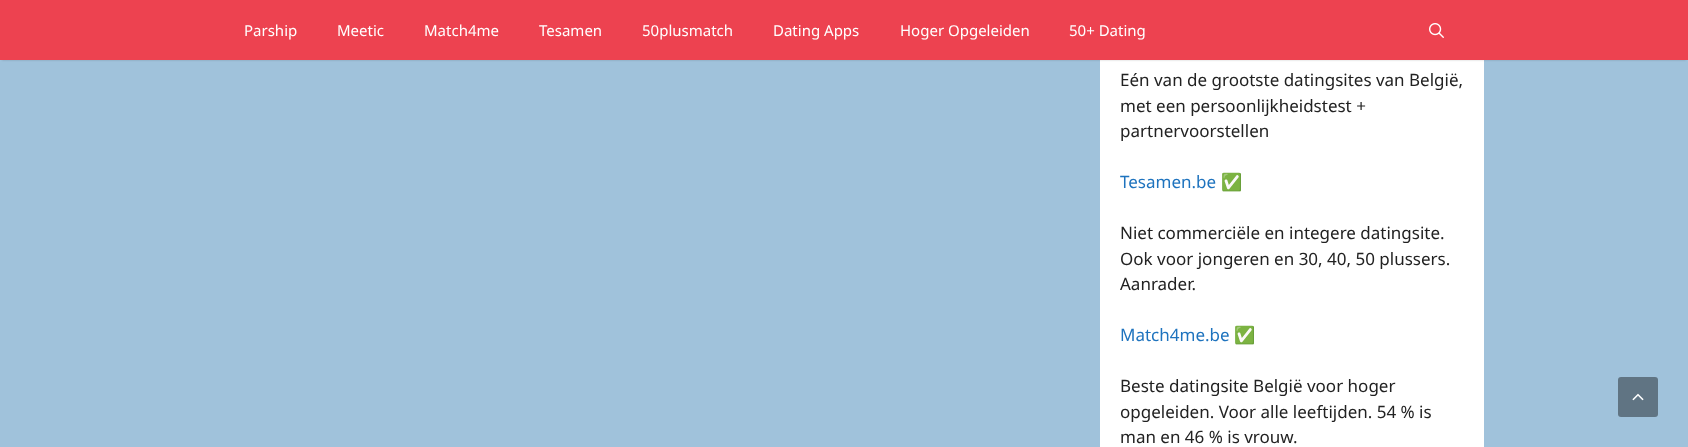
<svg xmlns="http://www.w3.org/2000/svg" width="1688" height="447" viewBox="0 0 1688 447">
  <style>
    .t1 { font: 15px Noto Sans; fill: #fff; }
    .t2 { font: 17px Noto Sans; fill: #222; }
    .t3 { font: 17px Noto Sans; fill: #1e73be; }
    .t4 { font: 17px Noto Color Emoji; fill: #1e73be; }
  </style>
  <rect width="100%" height="100%" fill="#a0c2db"/>
  <rect x="1100" y="60" width="384" height="387" fill="#fff"/>
  <rect x="2" y="4" width="1684" height="56" fill="#00000033" filter="blur(1px)"/>
  <rect x="0" y="0" width="1688" height="60" fill="#ed4250"/>
  <text x="244" y="36" class="t1">Parship</text>
  <text x="337" y="36" class="t1">Meetic</text>
  <text x="424" y="36" class="t1">Match4me</text>
  <text x="539" y="36" class="t1">Tesamen</text>
  <text x="642" y="36" class="t1">50plusmatch</text>
  <text x="773" y="36" class="t1">Dating Apps</text>
  <text x="900" y="36" class="t1">Hoger Opgeleiden</text>
  <text x="1069" y="36" class="t1">50+ Dating</text>
  <image x="1429" y="23" width="15" height="15" href="images/1.png"/>
  <text x="1120" y="86" class="t2">Eén van de grootste datingsites van België,</text>
  <text x="1120" y="112" class="t2">met een persoonlijkheidstest +</text>
  <text x="1120" y="137" class="t2">partnervoorstellen</text>
  <text x="1120" y="188" class="t3">Tesamen.be</text>
  <text x="1221" y="188" class="t4">✅</text>
  <text x="1120" y="239" class="t2">Niet commerciële en integere datingsite.</text>
  <text x="1120" y="265" class="t2">Ook voor jongeren en 30, 40, 50 plussers.</text>
  <text x="1120" y="290" class="t2">Aanrader.</text>
  <text x="1120" y="341" class="t3">Match4me.be</text>
  <text x="1234" y="341" class="t4">✅</text>
  <text x="1120" y="392" class="t2">Beste datingsite België voor hoger</text>
  <text x="1120" y="418" class="t2">opgeleiden. Voor alle leeftijden. 54 % is</text>
  <text x="1120" y="443" class="t2">man en 46 % is vrouw.</text>
  <rect x="1618" y="377" width="40" height="40" rx="3" fill="#607483"/>
  <image x="1632" y="393" width="12" height="8" href="images/2.png"/>
</svg>
